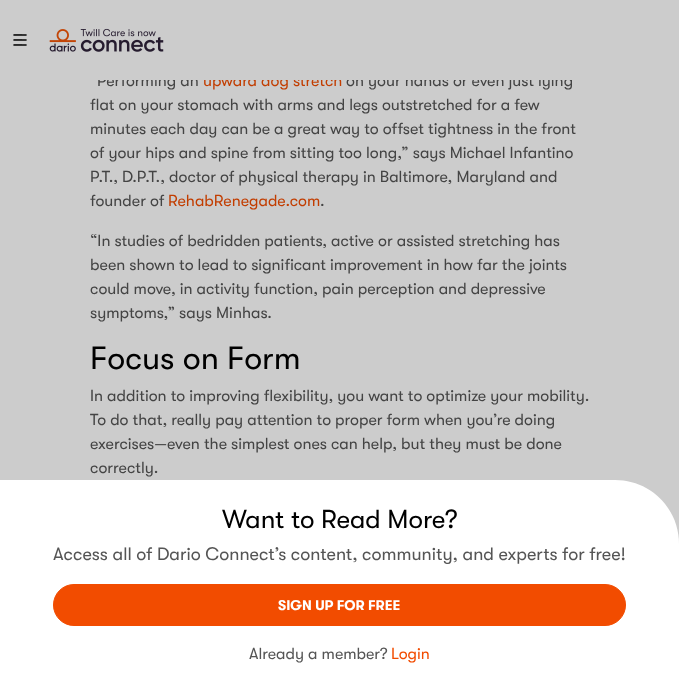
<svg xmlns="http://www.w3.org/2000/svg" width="679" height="690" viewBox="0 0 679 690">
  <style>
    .t1 { font: 16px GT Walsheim; fill: #444; }
    .t2 { font: 16px GT Walsheim; fill: #c23d00; }
    .t3 { font: 32.25px GT Walsheim; fill: #000; }
    .t4 { font: 26px GT Walsheim; fill: #000; }
    .t5 { font: 18px GT Walsheim; fill: #555; }
    .t6 { font: bold 14px GT Walsheim; fill: #fff; }
    .t7 { font: 16px GT Walsheim; fill: #555; }
    .t8 { font: 16px GT Walsheim; fill: #f24c00; }
  </style>
  <rect width="100%" height="100%" fill="#ccc"/>
  <text x="97" y="86" class="t1">Performing an</text>
  <text x="203" y="86" class="t2">upward dog stretch</text>
  <text x="346" y="86" class="t1">on your hands or even just lying</text>
  <rect x="98" y="74" width="474" height="6" fill="#ccc"/>
  <image x="13" y="34" width="14" height="12" href="images/1.png"/>
  <image x="49" y="28" width="115" height="24" href="images/2.png"/>
  <text x="90" y="110" class="t1">flat on your stomach with arms and legs outstretched for a few</text>
  <text x="90" y="134" class="t1">minutes each day can be a great way to offset tightness in the front</text>
  <text x="90" y="158" class="t1">of your hips and spine from sitting too long,” says Michael Infantino</text>
  <text x="90" y="182" class="t1">P.T., D.P.T., doctor of physical therapy in Baltimore, Maryland and</text>
  <text x="90" y="206" class="t1">founder of</text>
  <text x="168" y="206" class="t2">RehabRenegade.com</text>
  <text x="320" y="206" class="t1">.</text>
  <text x="90" y="246" class="t1">“In studies of bedridden patients, active or assisted stretching has</text>
  <text x="90" y="270" class="t1">been shown to lead to significant improvement in how far the joints</text>
  <text x="90" y="294" class="t1">could move, in activity function, pain perception and depressive</text>
  <text x="90" y="318" class="t1">symptoms,” says Minhas.</text>
  <text x="90" y="369" class="t3">Focus on Form</text>
  <text x="90" y="401" class="t1">In addition to improving flexibility, you want to optimize your mobility.</text>
  <text x="90" y="425" class="t1">To do that, really pay attention to proper form when you’re doing</text>
  <text x="90" y="449" class="t1">exercises—even the simplest ones can help, but they must be done</text>
  <text x="90" y="473" class="t1">correctly.</text>
  <path d="M0 480H615C650.5 480 679 508.5 679 544V690H0Z" fill="#fff"/>
  <text x="222" y="528" class="t4">Want to Read More?</text>
  <text x="53" y="560" class="t5">Access all of Dario Connect’s content, community, and experts for free!</text>
  <rect x="53.5" y="584.5" width="572" height="41" rx="20.5" fill="#f24c00" stroke="#f24c00"/>
  <text x="278" y="610" class="t6">SIGN UP FOR FREE</text>
  <text x="249" y="659" class="t7">Already a member?</text>
  <text x="391" y="659" class="t8">Login</text>
</svg>
